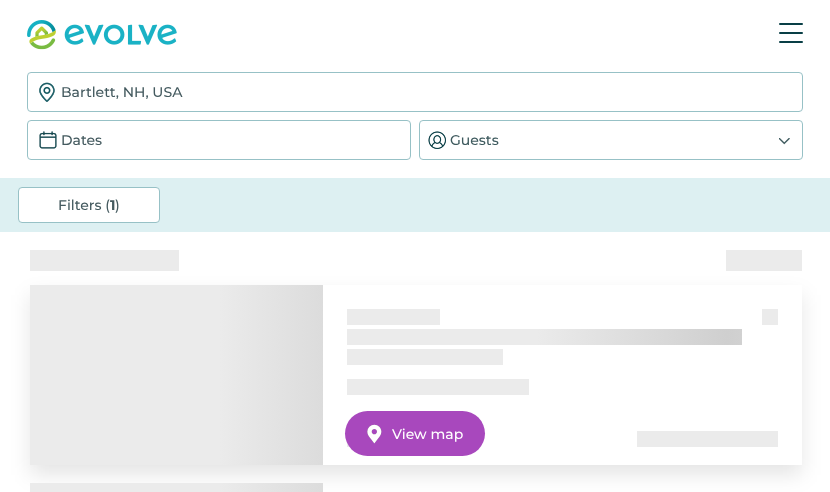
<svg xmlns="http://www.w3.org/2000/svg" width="830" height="492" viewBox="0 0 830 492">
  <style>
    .t1 { font: 500 14px Montserrat; fill: #445a5f; }
    .t2 { font: 500 14px Montserrat; fill: #3e5a5e; }
    .t3 { font: bold 14px Montserrat; fill: #445a5f; }
    .t4 { font: 500 14px Montserrat; fill: #fff; }
  </style>
  <defs>
    <clipPath id="clip1"><path d="M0 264H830V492H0ZM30 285H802V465H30Z" clip-rule="evenodd"/></clipPath>
    <linearGradient id="g1" gradientUnits="userSpaceOnUse" x1="30" y1="261" x2="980" y2="260"><stop offset="0" stop-color="#ebebeb"/><stop offset="0.2" stop-color="#ebebeb"/><stop offset="0.4" stop-color="#cfcfcf"/><stop offset="0.6" stop-color="#ebebeb"/><stop offset="1" stop-color="#ebebeb"/></linearGradient>
    <linearGradient id="g2" gradientUnits="userSpaceOnUse" x1="726" y1="261" x2="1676" y2="260"><stop offset="0" stop-color="#ebebeb"/><stop offset="0.2" stop-color="#ebebeb"/><stop offset="0.4" stop-color="#cfcfcf"/><stop offset="0.6" stop-color="#ebebeb"/><stop offset="1" stop-color="#ebebeb"/></linearGradient>
    <linearGradient id="g3" gradientUnits="userSpaceOnUse" x1="30" y1="375" x2="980" y2="375"><stop offset="0" stop-color="#ebebeb"/><stop offset="0.2" stop-color="#ebebeb"/><stop offset="0.4" stop-color="#cfcfcf"/><stop offset="0.6" stop-color="#ebebeb"/><stop offset="1" stop-color="#ebebeb"/></linearGradient>
    <linearGradient id="g4" gradientUnits="userSpaceOnUse" x1="347" y1="317" x2="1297" y2="317"><stop offset="0" stop-color="#ebebeb"/><stop offset="0.2" stop-color="#ebebeb"/><stop offset="0.4" stop-color="#cfcfcf"/><stop offset="0.6" stop-color="#ebebeb"/><stop offset="1" stop-color="#ebebeb"/></linearGradient>
    <linearGradient id="g5" gradientUnits="userSpaceOnUse" x1="762" y1="317" x2="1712" y2="317"><stop offset="0" stop-color="#ebebeb"/><stop offset="0.2" stop-color="#ebebeb"/><stop offset="0.4" stop-color="#cfcfcf"/><stop offset="0.6" stop-color="#ebebeb"/><stop offset="1" stop-color="#ebebeb"/></linearGradient>
    <linearGradient id="g6" gradientUnits="userSpaceOnUse" x1="347" y1="337" x2="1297" y2="337"><stop offset="0" stop-color="#ebebeb"/><stop offset="0.2" stop-color="#ebebeb"/><stop offset="0.4" stop-color="#cfcfcf"/><stop offset="0.6" stop-color="#ebebeb"/><stop offset="1" stop-color="#ebebeb"/></linearGradient>
    <linearGradient id="g7" gradientUnits="userSpaceOnUse" x1="347" y1="357" x2="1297" y2="357"><stop offset="0" stop-color="#ebebeb"/><stop offset="0.2" stop-color="#ebebeb"/><stop offset="0.4" stop-color="#cfcfcf"/><stop offset="0.6" stop-color="#ebebeb"/><stop offset="1" stop-color="#ebebeb"/></linearGradient>
    <linearGradient id="g8" gradientUnits="userSpaceOnUse" x1="347" y1="387" x2="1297" y2="387"><stop offset="0" stop-color="#ebebeb"/><stop offset="0.2" stop-color="#ebebeb"/><stop offset="0.4" stop-color="#cfcfcf"/><stop offset="0.6" stop-color="#ebebeb"/><stop offset="1" stop-color="#ebebeb"/></linearGradient>
    <linearGradient id="g9" gradientUnits="userSpaceOnUse" x1="347" y1="439" x2="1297" y2="439"><stop offset="0" stop-color="#ebebeb"/><stop offset="0.2" stop-color="#ebebeb"/><stop offset="0.4" stop-color="#cfcfcf"/><stop offset="0.6" stop-color="#ebebeb"/><stop offset="1" stop-color="#ebebeb"/></linearGradient>
    <linearGradient id="g10" gradientUnits="userSpaceOnUse" x1="637" y1="439" x2="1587" y2="439"><stop offset="0" stop-color="#ebebeb"/><stop offset="0.2" stop-color="#ebebeb"/><stop offset="0.4" stop-color="#cfcfcf"/><stop offset="0.6" stop-color="#ebebeb"/><stop offset="1" stop-color="#ebebeb"/></linearGradient>
    <linearGradient id="g11" gradientUnits="userSpaceOnUse" x1="30" y1="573" x2="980" y2="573"><stop offset="0" stop-color="#ebebeb"/><stop offset="0.2" stop-color="#ebebeb"/><stop offset="0.4" stop-color="#cfcfcf"/><stop offset="0.6" stop-color="#ebebeb"/><stop offset="1" stop-color="#ebebeb"/></linearGradient>
  </defs>
  <rect width="100%" height="100%" fill="#fff"/>
  <rect x="779" y="23" width="24" height="2" rx="1" fill="#093f46"/>
  <rect x="779" y="32" width="24" height="2" rx="1" fill="#093f46"/>
  <rect x="779" y="41" width="24" height="2" rx="1" fill="#093f46"/>
  <image x="27" y="20" width="150" height="30" href="images/1.png"/>
  <rect x="27.5" y="72.5" width="775" height="39" rx="3.5" fill="none" stroke="#97c1c6"/>
  <image x="39" y="82" width="16" height="20" href="images/2.png"/>
  <text x="61" y="97" class="t1">Bartlett, NH, USA</text>
  <rect x="27.5" y="120.5" width="383" height="39" rx="3.5" fill="none" stroke="#97c1c6"/>
  <image x="39" y="131" width="18" height="18" href="images/3.png"/>
  <text x="61" y="145" class="t1">Dates</text>
  <rect x="419.5" y="120.5" width="383" height="39" rx="3.5" fill="none" stroke="#97c1c6"/>
  <image x="428" y="131" width="18" height="18" href="images/4.png"/>
  <text x="450" y="145" class="t2">Guests</text>
  <image x="779" y="138" width="11" height="7" href="images/5.png"/>
  <rect x="0" y="178" width="830" height="54" fill="#ddf0f2"/>
  <rect x="18.5" y="187.5" width="141" height="35" rx="3.5" fill="#fff" stroke="#97c1c6"/>
  <text x="58" y="210" class="t1">Filters (</text>
  <text x="110" y="210" class="t3">1</text>
  <text x="115" y="210" class="t1">)</text>
  <g clip-path="url(#clip1)">
    <rect x="30" y="295" width="772" height="180" fill="#0000001a" filter="blur(10px)"/>
  </g>
  <rect x="30" y="250" width="149" height="21" fill="url(#g1)"/>
  <rect x="726" y="250" width="76" height="21" fill="url(#g2)"/>
  <rect x="30" y="285" width="293" height="180" fill="url(#g3)"/>
  <rect x="347" y="309" width="93" height="16" fill="url(#g4)"/>
  <rect x="762" y="309" width="16" height="16" fill="url(#g5)"/>
  <rect x="347" y="329" width="395" height="16" fill="url(#g6)"/>
  <rect x="347" y="349" width="156" height="16" fill="url(#g7)"/>
  <rect x="347" y="379" width="182" height="16" fill="url(#g8)"/>
  <rect x="347" y="442" width="3" height="5" fill="url(#g9)"/>
  <rect x="637" y="431" width="141" height="16" fill="url(#g10)"/>
  <rect x="30" y="483" width="293" height="9" fill="url(#g11)"/>
  <rect x="345" y="411" width="140" height="45" rx="22.5" fill="#a848bd"/>
  <image x="367" y="424" width="15" height="20" href="images/6.png"/>
  <text x="392" y="439" class="t4">View map</text>
</svg>
